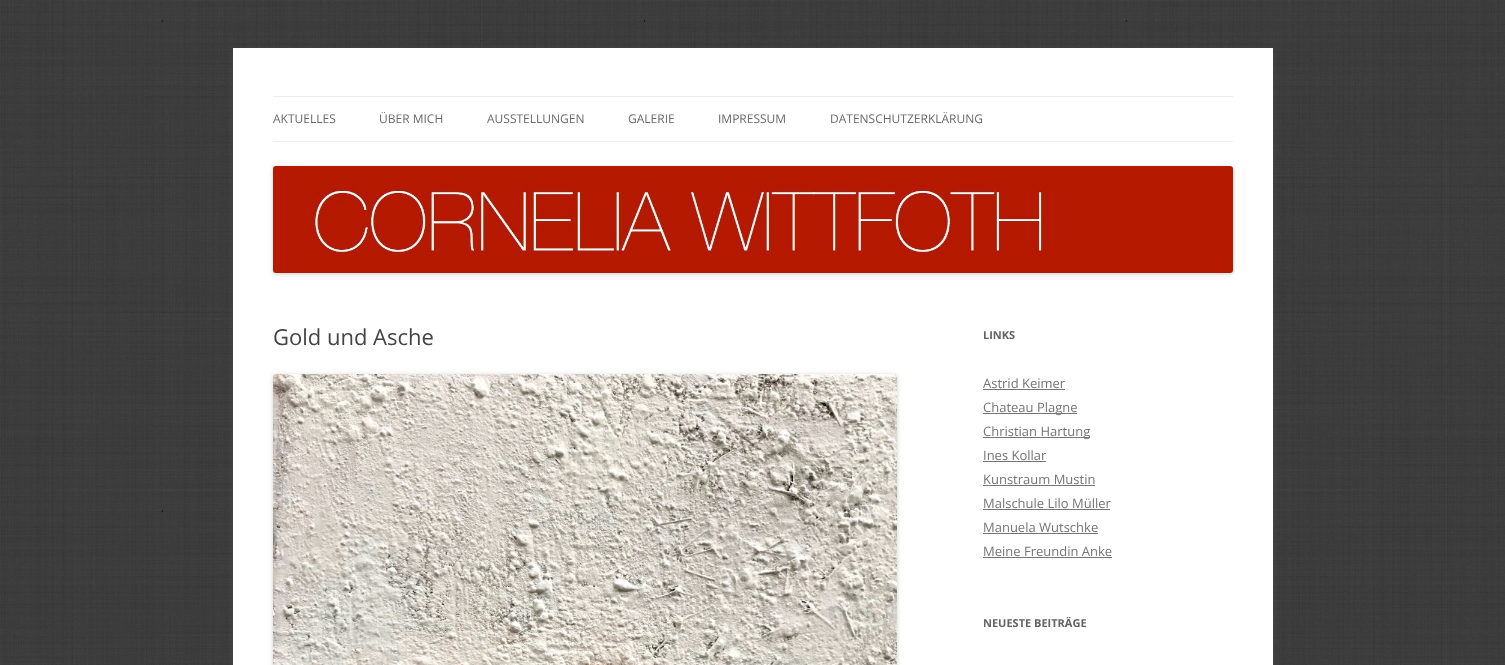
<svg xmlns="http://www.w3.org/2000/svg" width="1505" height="665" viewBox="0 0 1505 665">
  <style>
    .t1 { font: 12px Open Sans; fill: #6a6a6a; }
    .t2 { font: 22px Open Sans; fill: #444; }
    .t3 { font: bold 11px Open Sans; fill: #636363; }
    .t4 { font: 13px Open Sans; fill: #757575; }
  </style>
  <rect width="100%" height="100%" fill="#fff"/>
  <image x="0" y="0" width="1505" height="665" href="images/1.png"/>
  <rect x="233" y="50" width="1040" height="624" fill="#6464644d" filter="blur(3px)"/>
  <rect x="233" y="48" width="1040" height="617" fill="#fff"/>
  <rect x="273" y="96" width="960" height="1" fill="#ededed"/>
  <rect x="273" y="141" width="960" height="1" fill="#ededed"/>
  <text x="273" y="123" class="t1">AKTUELLES</text>
  <text x="379" y="123" class="t1">ÜBER MICH</text>
  <text x="487" y="123" class="t1">AUSSTELLUNGEN</text>
  <text x="628" y="123" class="t1">GALERIE</text>
  <text x="718" y="123" class="t1">IMPRESSUM</text>
  <text x="830" y="123" class="t1">DATENSCHUTZERKLÄRUNG</text>
  <rect x="273" y="167" width="960" height="107" rx="3" fill="#00000033" filter="blur(2px)"/>
  <image x="273" y="166" width="960" height="107" href="images/2.png"/>
  <text x="273" y="345" class="t2">Gold und Asche</text>
  <rect x="273" y="375" width="624" height="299" rx="3" fill="#00000033" filter="blur(2px)"/>
  <image x="273" y="374" width="624" height="291" href="images/3.png"/>
  <text x="983" y="339" class="t3">LINKS</text>
  <text x="983" y="388" class="t4">Astrid Keimer</text>
  <rect x="983" y="389" width="82" height="1" fill="#757575"/>
  <rect x="983" y="413" width="94" height="1" fill="#757575"/>
  <text x="983" y="412" class="t4">Chateau Plagne</text>
  <rect x="983" y="437" width="107" height="1" fill="#757575"/>
  <text x="983" y="436" class="t4">Christian Hartung</text>
  <text x="983" y="460" class="t4">Ines Kollar</text>
  <rect x="983" y="461" width="63" height="1" fill="#757575"/>
  <text x="983" y="484" class="t4">Kunstraum Mustin</text>
  <rect x="983" y="485" width="112" height="1" fill="#757575"/>
  <text x="983" y="508" class="t4">Malschule Lilo Müller</text>
  <rect x="983" y="509" width="127" height="1" fill="#757575"/>
  <text x="983" y="532" class="t4">Manuela Wutschke</text>
  <rect x="983" y="533" width="115" height="1" fill="#757575"/>
  <text x="983" y="556" class="t4">Meine Freundin Anke</text>
  <rect x="983" y="557" width="129" height="1" fill="#757575"/>
  <text x="983" y="627" class="t3">NEUESTE BEITRÄGE</text>
</svg>
